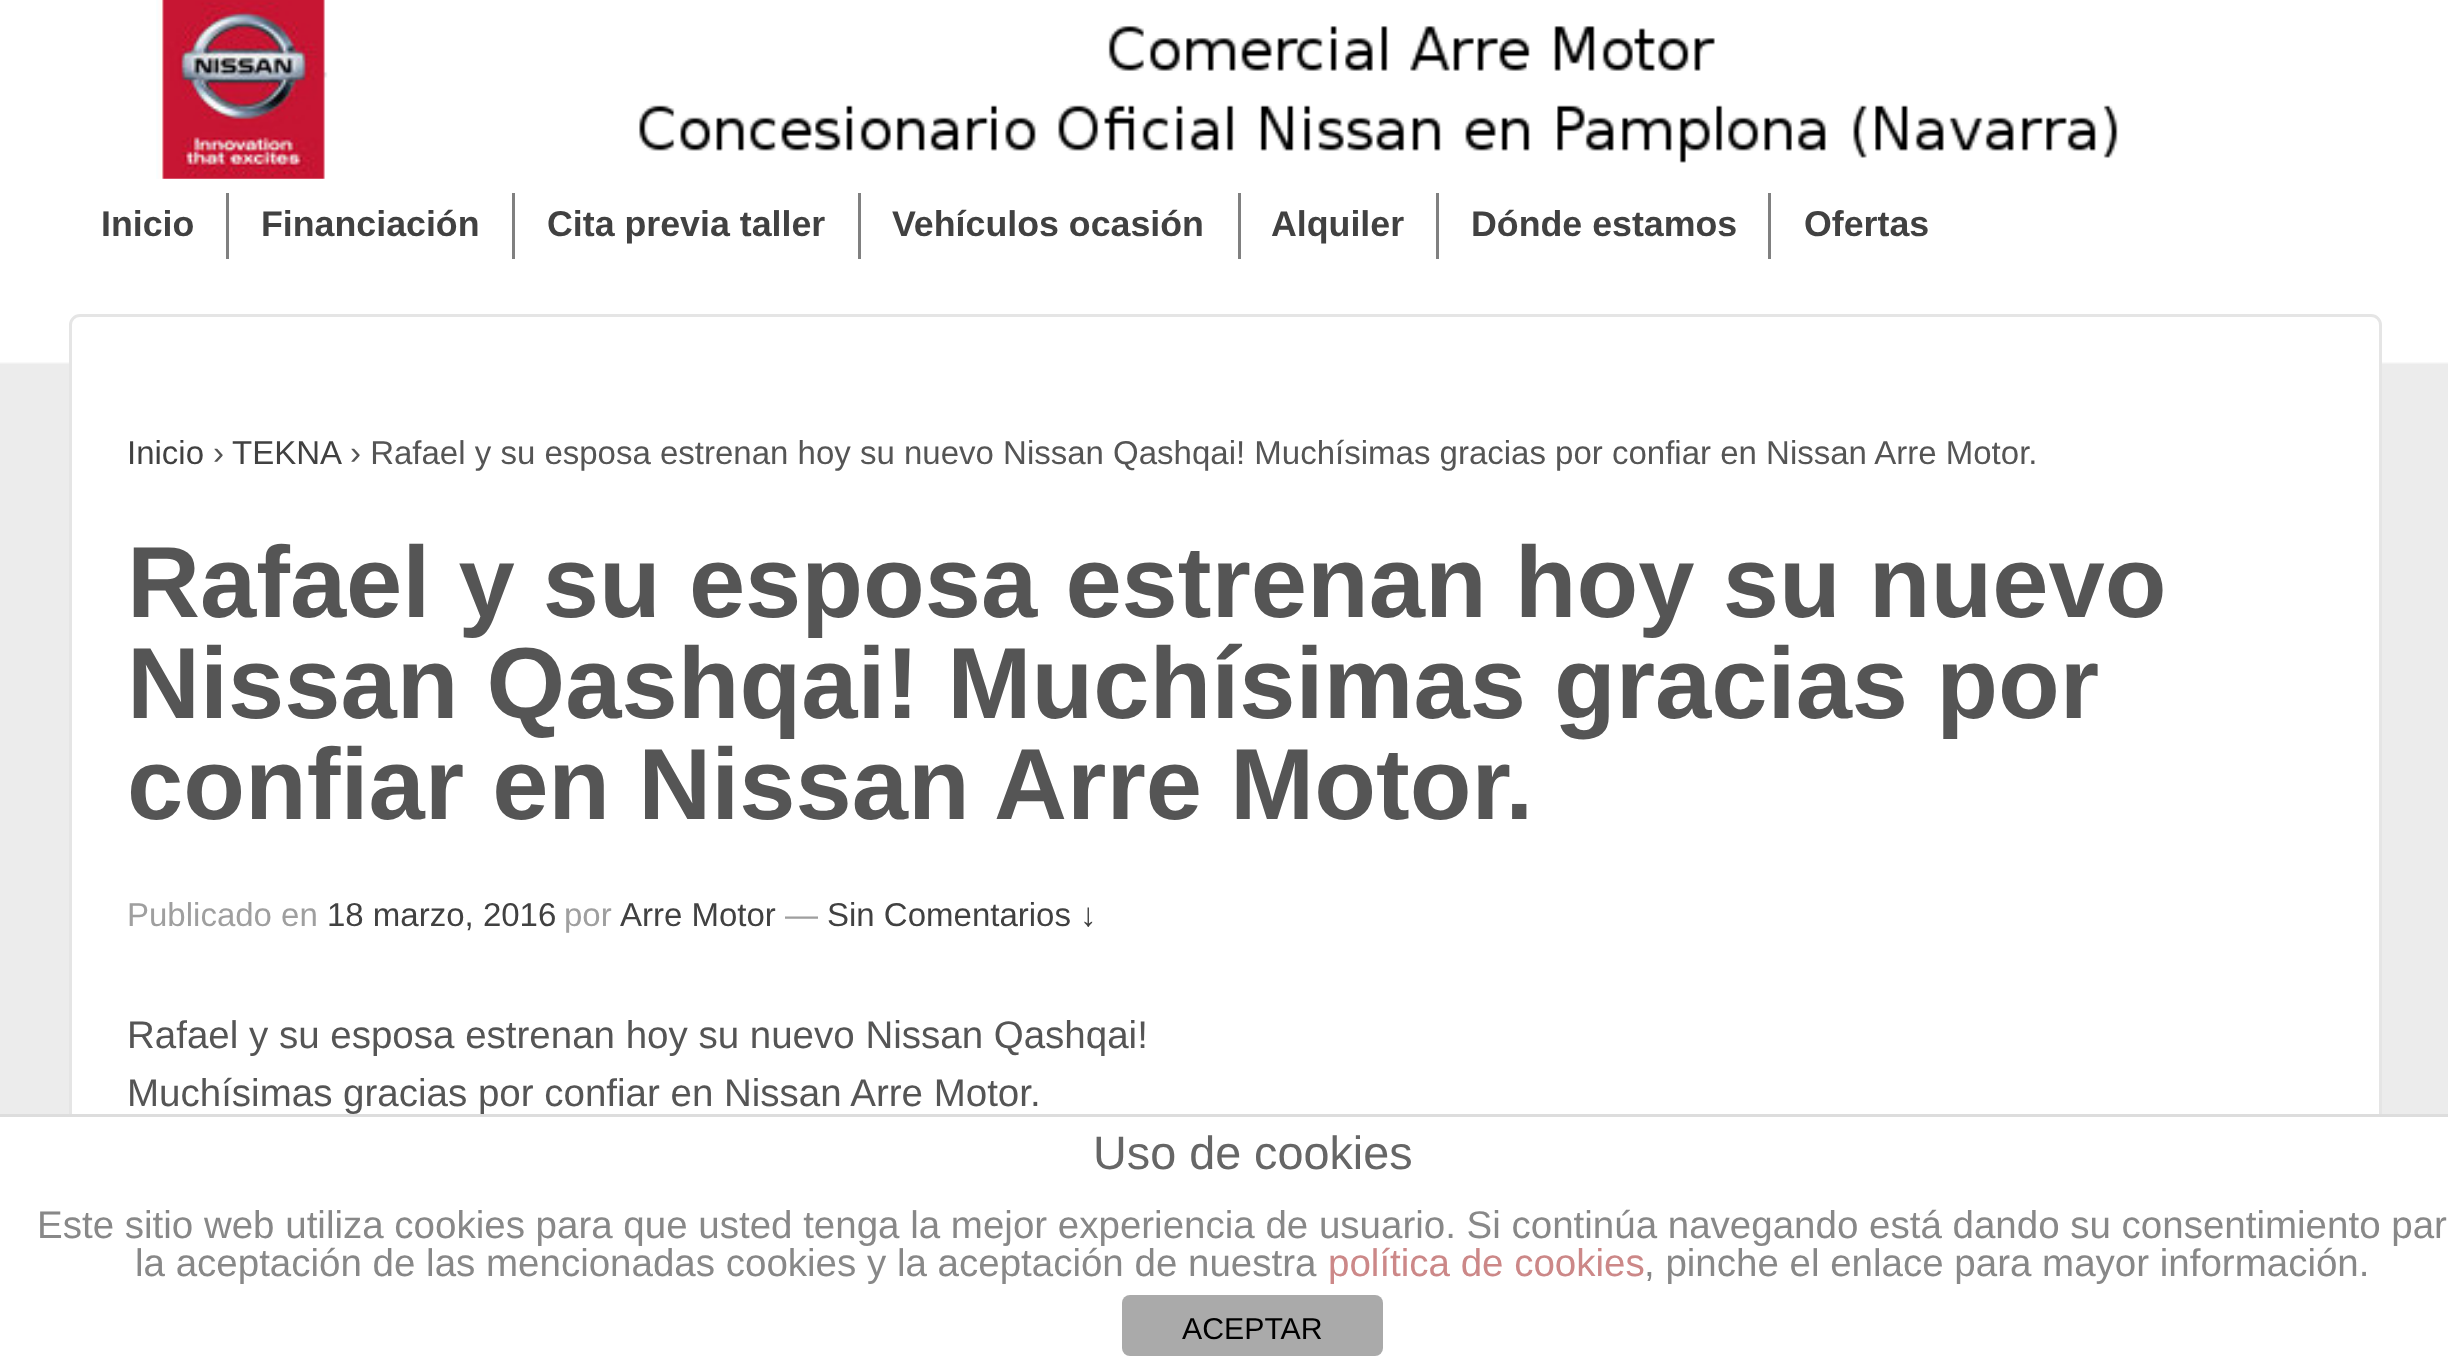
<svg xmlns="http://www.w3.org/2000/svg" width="2448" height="1370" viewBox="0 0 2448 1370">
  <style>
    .t1 { font: bold 35.75px Liberation Sans; fill: #414141; }
    .t2 { font: 33px Liberation Sans; fill: #414141; }
    .t3 { font: 33px Liberation Sans; fill: #555; }
    .t4 { font: bold 101.1px Liberation Sans; fill: #555; }
    .t5 { font: 33px Liberation Sans; fill: #9f9f9f; }
    .t6 { font: 38.5px Liberation Sans; fill: #555; }
    .t7 { font: 46.75px Liberation Sans; fill: #666; }
    .t8 { font: 38.5px Liberation Sans; fill: #888; }
    .t9 { font: 38.5px Liberation Sans; fill: #c88; }
    .t10 { font: 30.25px Liberation Sans; fill: #000; }
  </style>
  <rect width="100%" height="100%" fill="#ececec"/>
  <image x="0" y="0" width="2448" height="364" href="images/1.png"/>
  <image x="156" y="0" width="1962" height="179" href="images/2.png"/>
  <text x="101" y="236" class="t1">Inicio</text>
  <rect x="226" y="193" width="3" height="66" fill="#808080"/>
  <text x="261" y="236" class="t1">Financiación</text>
  <rect x="512" y="193" width="3" height="66" fill="#808080"/>
  <text x="547" y="236" class="t1">Cita previa taller</text>
  <rect x="858" y="193" width="3" height="66" fill="#808080"/>
  <text x="892" y="236" class="t1">Vehículos ocasión</text>
  <rect x="1238" y="193" width="3" height="66" fill="#808080"/>
  <text x="1271" y="236" class="t1">Alquiler</text>
  <rect x="1436" y="193" width="3" height="66" fill="#808080"/>
  <text x="1471" y="236" class="t1">Dónde estamos</text>
  <rect x="1768" y="193" width="3" height="66" fill="#808080"/>
  <text x="1804" y="236" class="t1">Ofertas</text>
  <rect x="70.5" y="315.5" width="2310" height="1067" rx="9.5" fill="#fff" stroke="#e5e5e5" stroke-width="3"/>
  <text x="127" y="464" class="t2">Inicio</text>
  <text x="213" y="464" class="t3">›</text>
  <text x="232" y="464" class="t2">TEKNA</text>
  <text x="350" y="464" class="t3">› Rafael y su esposa estrenan hoy su nuevo Nissan Qashqai! Muchísimas gracias por confiar en Nissan Arre Motor.</text>
  <text x="127" y="617" class="t4">Rafael y su esposa estrenan hoy su nuevo</text>
  <text x="127" y="718" class="t4">Nissan Qashqai! Muchísimas gracias por</text>
  <text x="127" y="819" class="t4">confiar en Nissan Arre Motor.</text>
  <text x="127" y="926" class="t5">Publicado en</text>
  <text x="327" y="926" class="t2">18 marzo, 2016</text>
  <text x="564" y="926" class="t5">por</text>
  <text x="620" y="926" class="t2">Arre Motor</text>
  <text x="785" y="926" class="t5">—</text>
  <text x="827" y="926" class="t2">Sin Comentarios ↓</text>
  <text x="127" y="1048" class="t6">Rafael y su esposa estrenan hoy su nuevo Nissan Qashqai!</text>
  <text x="127" y="1106" class="t6">Muchísimas gracias por confiar en Nissan Arre Motor.</text>
  <rect x="0" y="1117" width="2448" height="253" fill="#fff"/>
  <rect x="0" y="1114" width="2448" height="3" fill="#ddd"/>
  <text x="1093" y="1169" class="t7">Uso de cookies</text>
  <text x="37" y="1238" class="t8">Este sitio web utiliza cookies para que usted tenga la mejor experiencia de usuario. Si continúa navegando está dando su consentimiento par</text>
  <text x="135" y="1276" class="t8">la aceptación de las mencionadas cookies y la aceptación de nuestra</text>
  <text x="1328" y="1276" class="t9">política de cookies</text>
  <text x="1644" y="1276" class="t8">, pinche el enlace para mayor información.</text>
  <rect x="1122" y="1295" width="261" height="61" rx="8" fill="#aaa"/>
  <text x="1182" y="1339" class="t10">ACEPTAR</text>
</svg>
